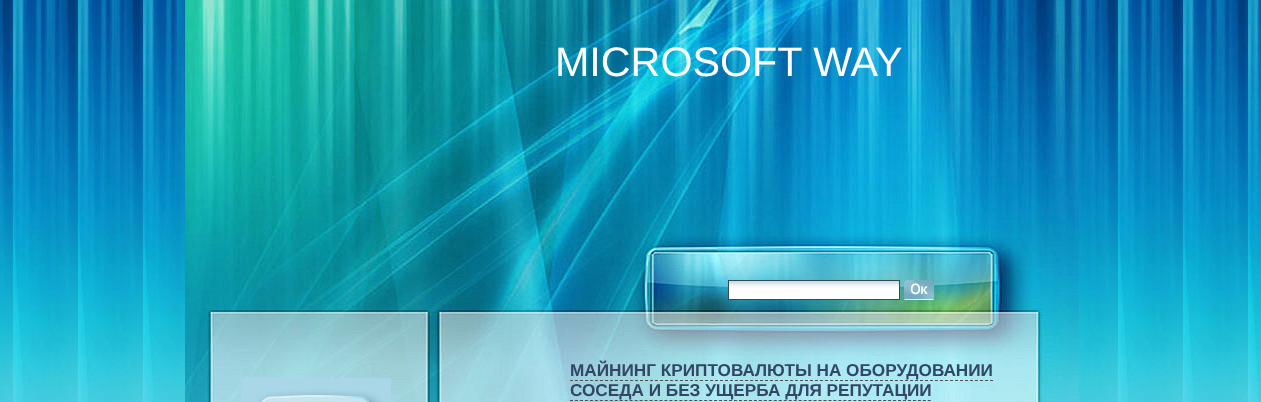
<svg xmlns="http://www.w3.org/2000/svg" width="1261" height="402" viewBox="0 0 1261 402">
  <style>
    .t1 { font: 41.25px Liberation Sans; fill: #fff; }
    .t2 { font: bold 17.2px Liberation Sans; fill: #324765; }
  </style>
  <rect width="100%" height="100%" fill="#fff"/>
  <image x="0" y="0" width="1261" height="402" href="images/1.png"/>
  <image x="185" y="0" width="894" height="402" href="images/2.png"/>
  <image x="241" y="378" width="150" height="24" href="images/3.png"/>
  <text x="555" y="76" class="t1">MICROSOFT WAY</text>
  <image x="729" y="281" width="170" height="18" href="images/4.png"/>
  <rect x="728.5" y="280.5" width="171" height="19" fill="none" stroke="#384c50"/>
  <image x="904" y="280" width="30" height="20" href="images/5.png"/>
  <text x="570" y="376" class="t2">МАЙНИНГ КРИПТОВАЛЮТЫ НА ОБОРУДОВАНИИ</text>
  <path d="M570 380.5H993" fill="none" stroke="#515151" stroke-dasharray="3 2"/>
  <text x="570" y="396" class="t2">СОСЕДА И БЕЗ УЩЕРБА ДЛЯ РЕПУТАЦИИ</text>
  <path d="M570 400.5H931" fill="none" stroke="#515151" stroke-dasharray="3 1.97"/>
</svg>
